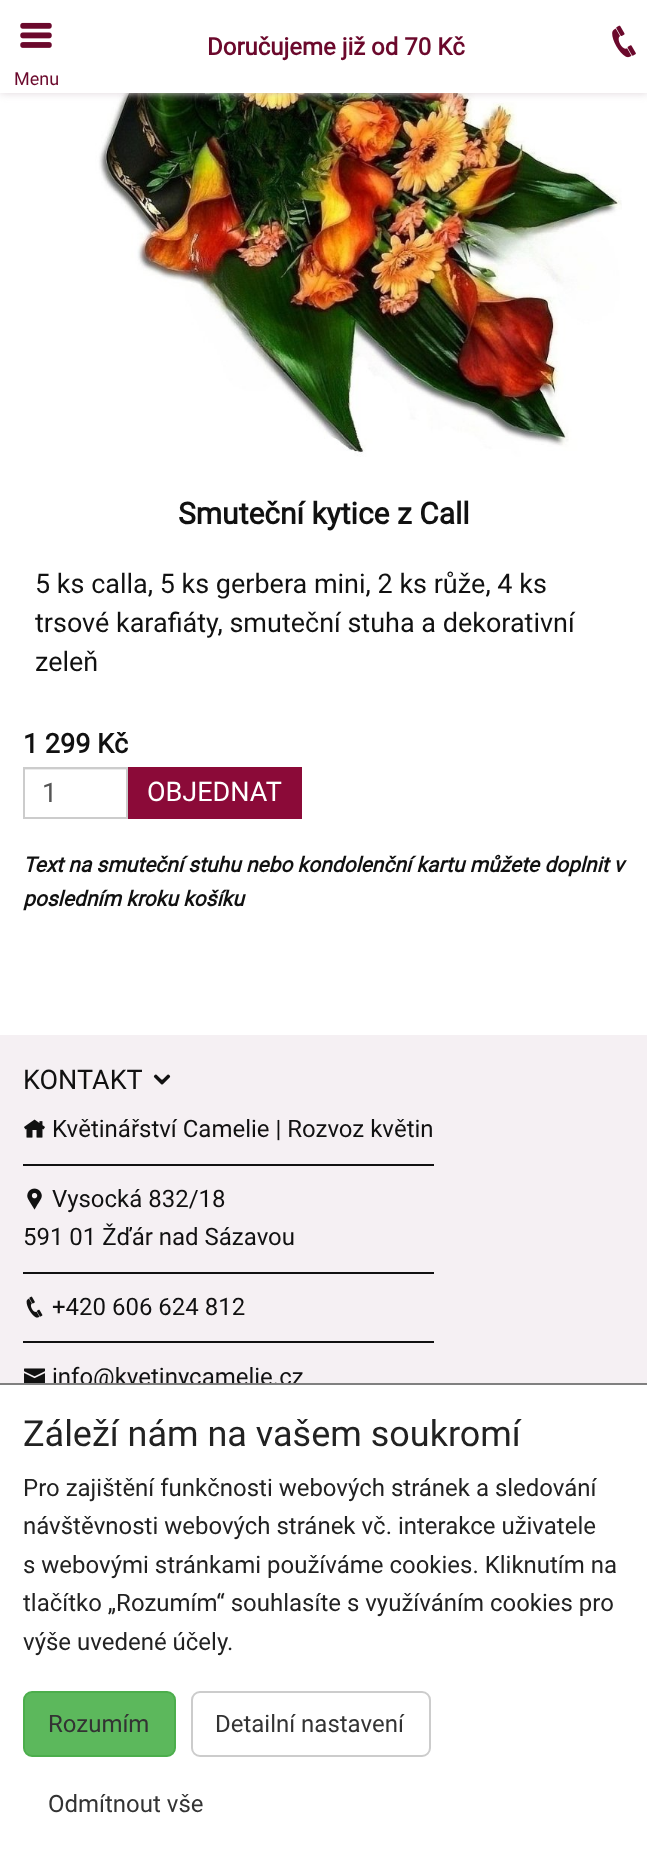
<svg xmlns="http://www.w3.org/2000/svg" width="647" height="1851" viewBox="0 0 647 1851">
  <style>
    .t1 { font: bold 24px Roboto; fill: #6b092c; }
    .t2 { font: 18px Roboto; fill: #6b092c; }
    .t3 { font: bold 30px Roboto; fill: #111; }
    .t4 { font: 27px Roboto; fill: #111; }
    .t5 { font: bold 27px Roboto; fill: #111; }
    .t6 { font: 27px Roboto; fill: #555; }
    .t7 { font: 27px Roboto; fill: #fff; }
    .t8 { font: italic bold 21px Roboto; fill: #111; }
    .t9 { font: 24px Roboto; fill: #111; }
    .t10 { font: 36px Roboto; fill: #222; }
    .t11 { font: 24px Roboto; fill: #222; }
    .t12 { font: 24px Roboto; fill: #333; }
  </style>
  <rect width="100%" height="100%" fill="#fff"/>
  <image x="47" y="93" width="575" height="364" href="images/3.png"/>
  <rect x="0" y="0" width="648" height="93" fill="#ddd5da" filter="blur(4px)"/>
  <rect x="0" y="0" width="647" height="93" fill="#fff"/>
  <text x="207" y="55" class="t1">Doručujeme již od 70 Kč</text>
  <image x="612" y="25" width="24" height="33" href="images/1.png"/>
  <image x="20" y="22" width="32" height="26" href="images/2.png"/>
  <text x="14" y="85" class="t2">Menu</text>
  <text x="178" y="524" class="t3">Smuteční kytice z Call</text>
  <text x="35" y="593" class="t4">5 ks calla, 5 ks gerbera mini, 2 ks růže, 4 ks</text>
  <text x="35" y="632" class="t4">trsové karafiáty, smuteční stuha a dekorativní</text>
  <text x="35" y="671" class="t4">zeleň</text>
  <text x="23" y="753" class="t5">1 299 Kč</text>
  <rect x="24" y="769" width="102" height="1" fill="#ececec"/>
  <rect x="24" y="768" width="103" height="50" fill="none" stroke="#ccc" stroke-width="2"/>
  <text x="42" y="802" class="t6">1</text>
  <rect x="128" y="767" width="174" height="52" fill="#8b0a38"/>
  <text x="147" y="801" class="t7">OBJEDNAT</text>
  <text x="23" y="872" class="t8">Text na smuteční stuhu nebo kondolenční kartu můžete doplnit v</text>
  <text x="23" y="906" class="t8">posledním kroku košíku</text>
  <rect x="0" y="1035" width="647" height="348" fill="#f5f0f3"/>
  <text x="23" y="1089" class="t4">KONTAKT</text>
  <image x="153" y="1074" width="18" height="11" href="images/4.png"/>
  <image x="24" y="1119" width="21" height="19" href="images/5.png"/>
  <text x="52" y="1137" class="t9">Květinářství Camelie | Rozvoz květin</text>
  <rect x="23" y="1164" width="411" height="2" fill="#111"/>
  <image x="27" y="1188" width="15" height="22" href="images/6.png"/>
  <text x="52" y="1207" class="t9">Vysocká 832/18</text>
  <text x="23" y="1245" class="t9">591 01 Žďár nad Sázavou</text>
  <rect x="23" y="1272" width="411" height="2" fill="#111"/>
  <image x="26" y="1296" width="17" height="22" href="images/7.png"/>
  <text x="52" y="1315" class="t9">+420 606 624 812</text>
  <rect x="23" y="1341" width="411" height="2" fill="#111"/>
  <image x="24" y="1368" width="21" height="15" href="images/8.png"/>
  <text x="52" y="1385" class="t9">info@kvetinycamelie.cz</text>
  <rect x="85" y="1385" width="203" height="6" fill="#fff"/>
  <rect x="0" y="1383" width="647" height="2" fill="#808080"/>
  <text x="23" y="1446" class="t10">Záleží nám na vašem soukromí</text>
  <text x="23" y="1496" class="t11">Pro zajištění funkčnosti webových stránek a sledování</text>
  <text x="23" y="1534" class="t11">návštěvnosti webových stránek vč. interakce uživatele</text>
  <text x="23" y="1573" class="t11">s webovými stránkami používáme cookies. Kliknutím na</text>
  <text x="23" y="1611" class="t11">tlačítko „Rozumím“ souhlasíte s využíváním cookies pro</text>
  <text x="23" y="1650" class="t11">výše uvedené účely.</text>
  <rect x="24" y="1692" width="151" height="64" rx="8" fill="#5cb85c" stroke="#4cae4c" stroke-width="2"/>
  <text x="48" y="1732" class="t12">Rozumím</text>
  <rect x="192" y="1692" width="238" height="64" rx="8" fill="none" stroke="#ccc" stroke-width="2"/>
  <text x="215" y="1732" class="t12">Detailní nastavení</text>
  <text x="48" y="1812" class="t12">Odmítnout vše</text>
</svg>
